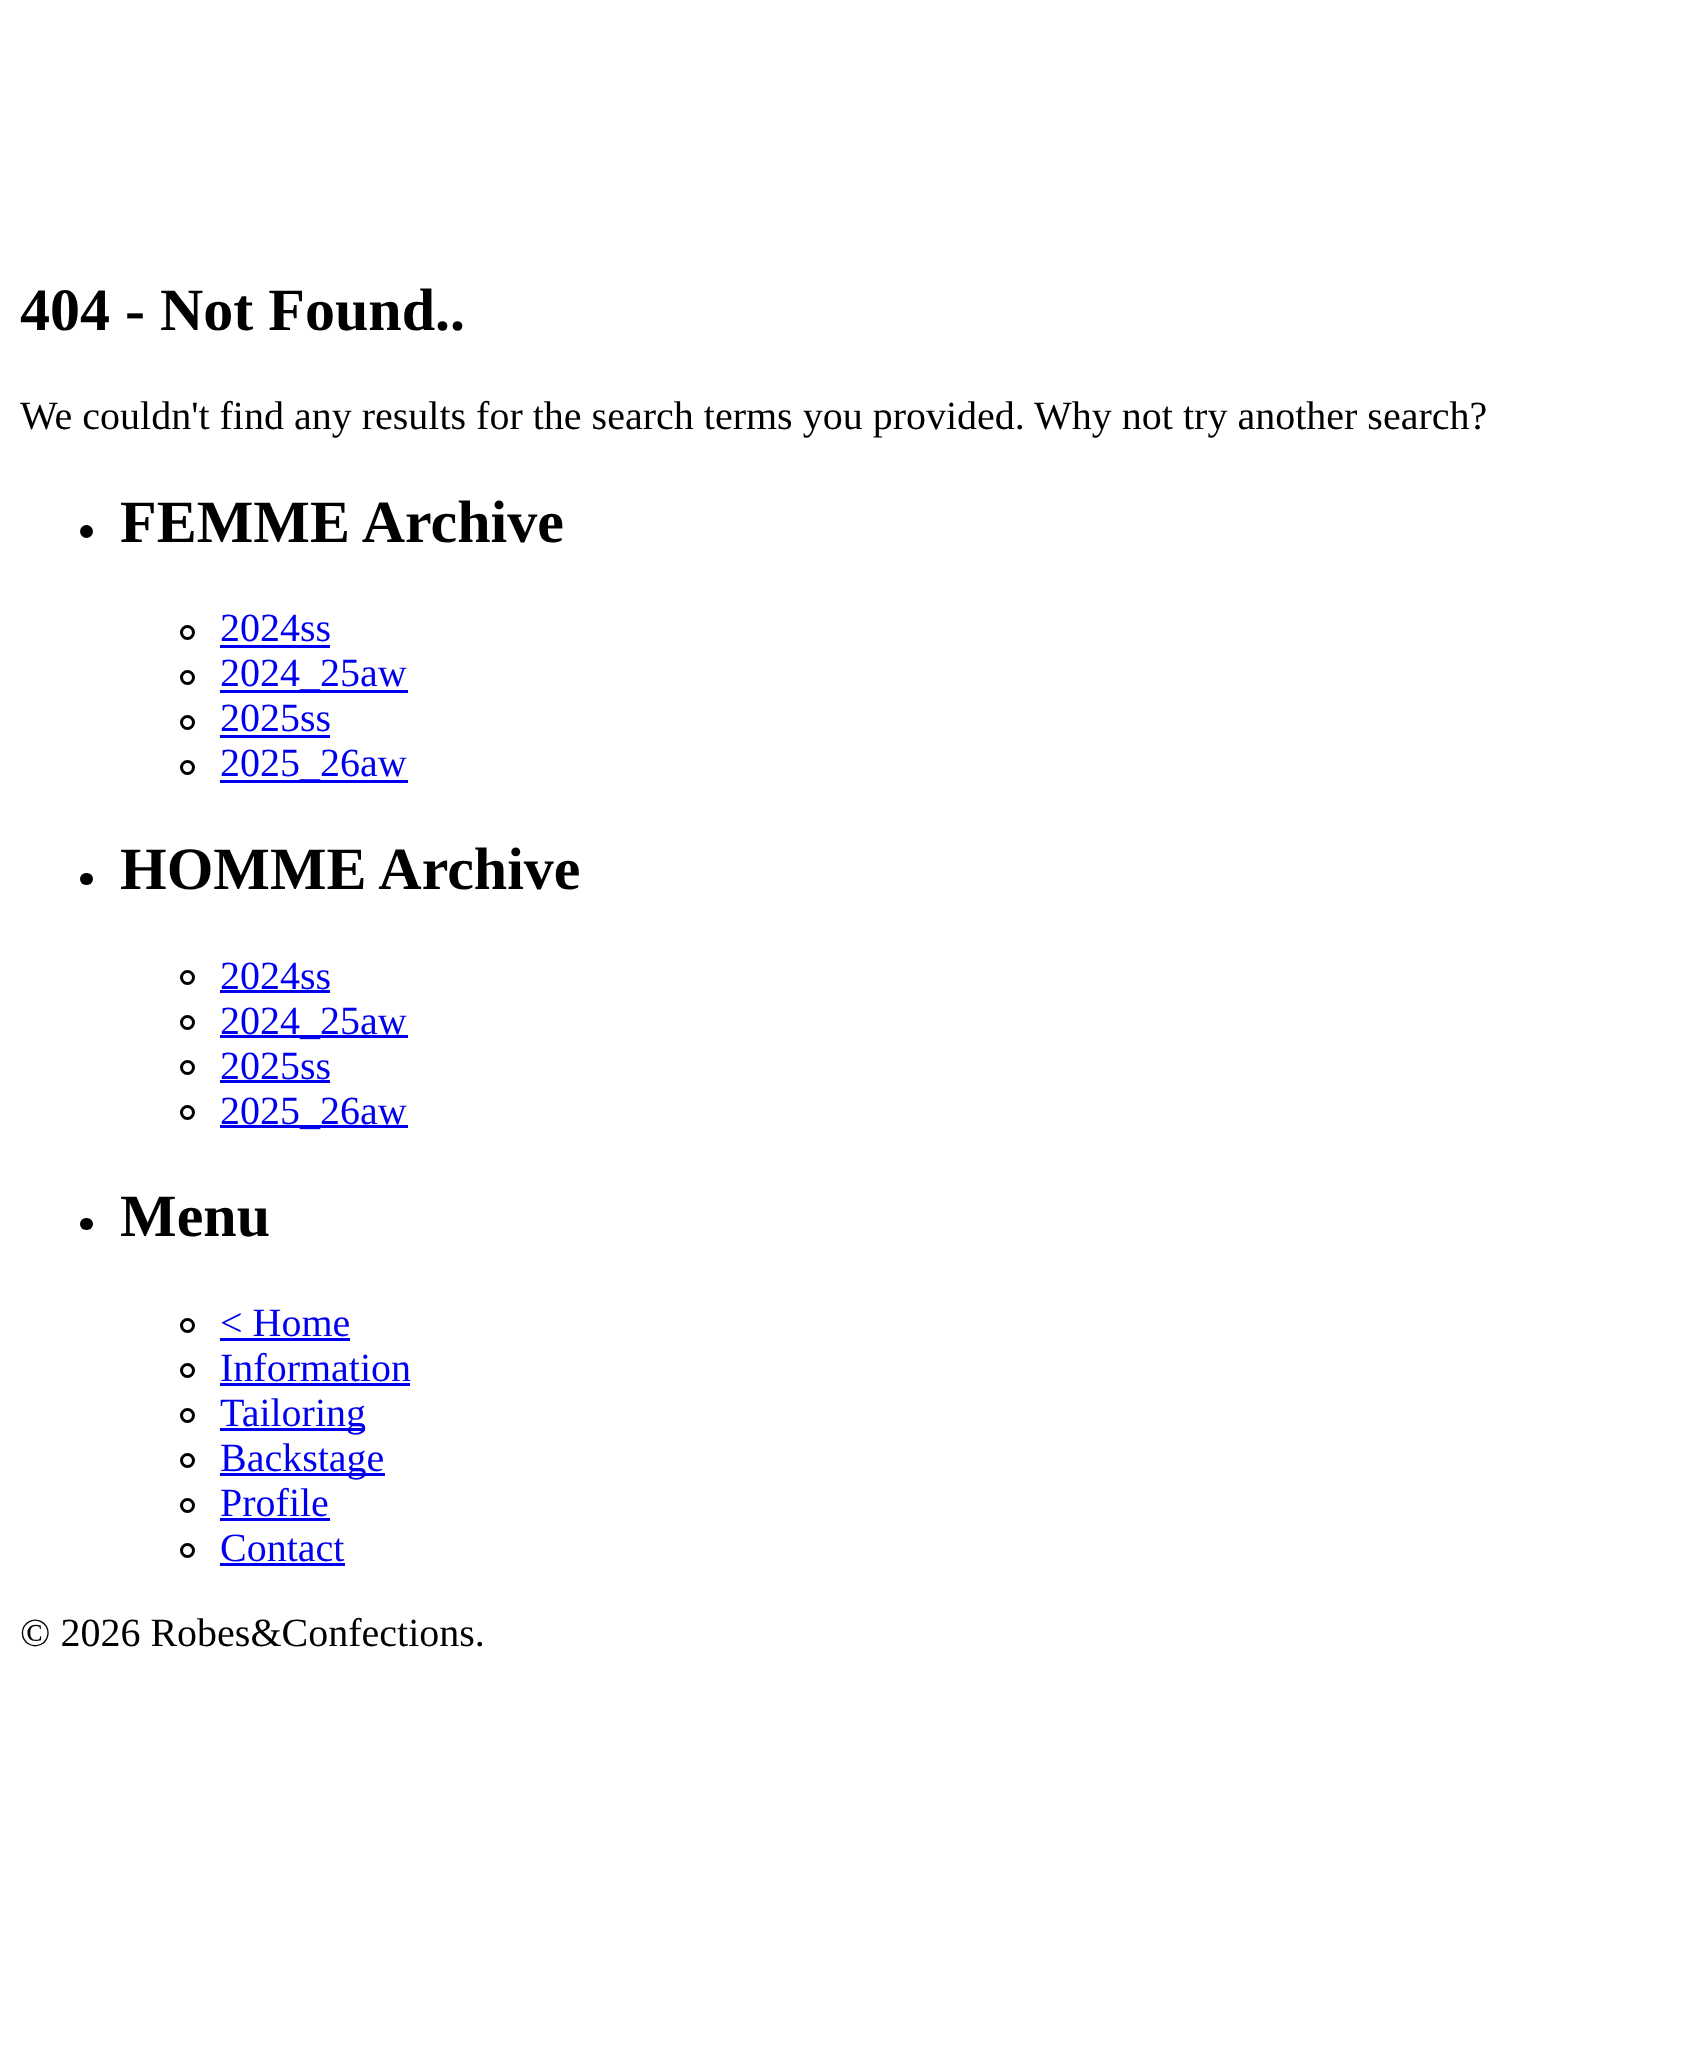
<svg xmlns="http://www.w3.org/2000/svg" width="1706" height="2058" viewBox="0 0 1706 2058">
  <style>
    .t1 { font: bold 60px Liberation Serif; fill: #000; }
    .t2 { font: 40px Liberation Serif; fill: #000; }
    .t3 { font: 40px Liberation Serif; fill: #00e; }
  </style>
  <rect width="100%" height="100%" fill="#fff"/>
  <text x="20" y="330" class="t1">404 - Not Found..</text>
  <text x="20" y="429" class="t2">We couldn't find any results for the search terms you provided. Why not try another search?</text>
  <circle cx="86.5" cy="531.5" r="6.5" fill="#000"/>
  <text x="120" y="542" class="t1">FEMME Archive</text>
  <circle cx="187.5" cy="632.5" r="6" fill="none" stroke="#000" stroke-width="3"/>
  <text x="220" y="641" class="t3">2024ss</text>
  <rect x="220" y="645" width="110" height="3" fill="#00e"/>
  <circle cx="187.5" cy="677.5" r="6" fill="none" stroke="#000" stroke-width="3"/>
  <rect x="220" y="690" width="188" height="3" fill="#00e"/>
  <text x="220" y="686" class="t3">2024_25aw</text>
  <circle cx="187.5" cy="722.5" r="6" fill="none" stroke="#000" stroke-width="3"/>
  <text x="220" y="731" class="t3">2025ss</text>
  <rect x="220" y="735" width="110" height="3" fill="#00e"/>
  <circle cx="187.5" cy="767.5" r="6" fill="none" stroke="#000" stroke-width="3"/>
  <rect x="220" y="780" width="188" height="3" fill="#00e"/>
  <text x="220" y="776" class="t3">2025_26aw</text>
  <rect x="80" y="873" width="13" height="12" rx="6" fill="#000"/>
  <text x="120" y="889" class="t1">HOMME Archive</text>
  <circle cx="187.5" cy="977.5" r="6" fill="none" stroke="#000" stroke-width="3"/>
  <text x="220" y="989" class="t3">2024ss</text>
  <rect x="220" y="990" width="110" height="3" fill="#00e"/>
  <circle cx="187.5" cy="1022.5" r="6" fill="none" stroke="#000" stroke-width="3"/>
  <rect x="220" y="1035" width="188" height="3" fill="#00e"/>
  <text x="220" y="1034" class="t3">2024_25aw</text>
  <circle cx="187.5" cy="1067.5" r="6" fill="none" stroke="#000" stroke-width="3"/>
  <text x="220" y="1079" class="t3">2025ss</text>
  <rect x="220" y="1080" width="110" height="3" fill="#00e"/>
  <circle cx="187.5" cy="1112.5" r="6" fill="none" stroke="#000" stroke-width="3"/>
  <rect x="220" y="1125" width="188" height="3" fill="#00e"/>
  <text x="220" y="1124" class="t3">2025_26aw</text>
  <rect x="80" y="1218" width="13" height="12" rx="6" fill="#000"/>
  <text x="120" y="1236" class="t1">Menu</text>
  <circle cx="187.5" cy="1325.5" r="6" fill="none" stroke="#000" stroke-width="3"/>
  <text x="220" y="1336" class="t3">&lt; Home</text>
  <rect x="220" y="1338" width="130" height="3" fill="#00e"/>
  <circle cx="187.5" cy="1370.5" r="6" fill="none" stroke="#000" stroke-width="3"/>
  <text x="220" y="1381" class="t3">Information</text>
  <rect x="220" y="1383" width="190" height="3" fill="#00e"/>
  <circle cx="187.5" cy="1415.5" r="6" fill="none" stroke="#000" stroke-width="3"/>
  <rect x="220" y="1428" width="145" height="3" fill="#00e"/>
  <text x="220" y="1426" class="t3">Tailoring</text>
  <circle cx="187.5" cy="1460.5" r="6" fill="none" stroke="#000" stroke-width="3"/>
  <rect x="220" y="1473" width="165" height="3" fill="#00e"/>
  <text x="220" y="1471" class="t3">Backstage</text>
  <circle cx="187.5" cy="1505.5" r="6" fill="none" stroke="#000" stroke-width="3"/>
  <text x="220" y="1516" class="t3">Profile</text>
  <rect x="220" y="1518" width="110" height="3" fill="#00e"/>
  <circle cx="187.5" cy="1550.5" r="6" fill="none" stroke="#000" stroke-width="3"/>
  <text x="220" y="1561" class="t3">Contact</text>
  <rect x="220" y="1563" width="125" height="3" fill="#00e"/>
  <text x="20" y="1646" class="t2">© 2026 Robes&amp;Confections.</text>
</svg>
